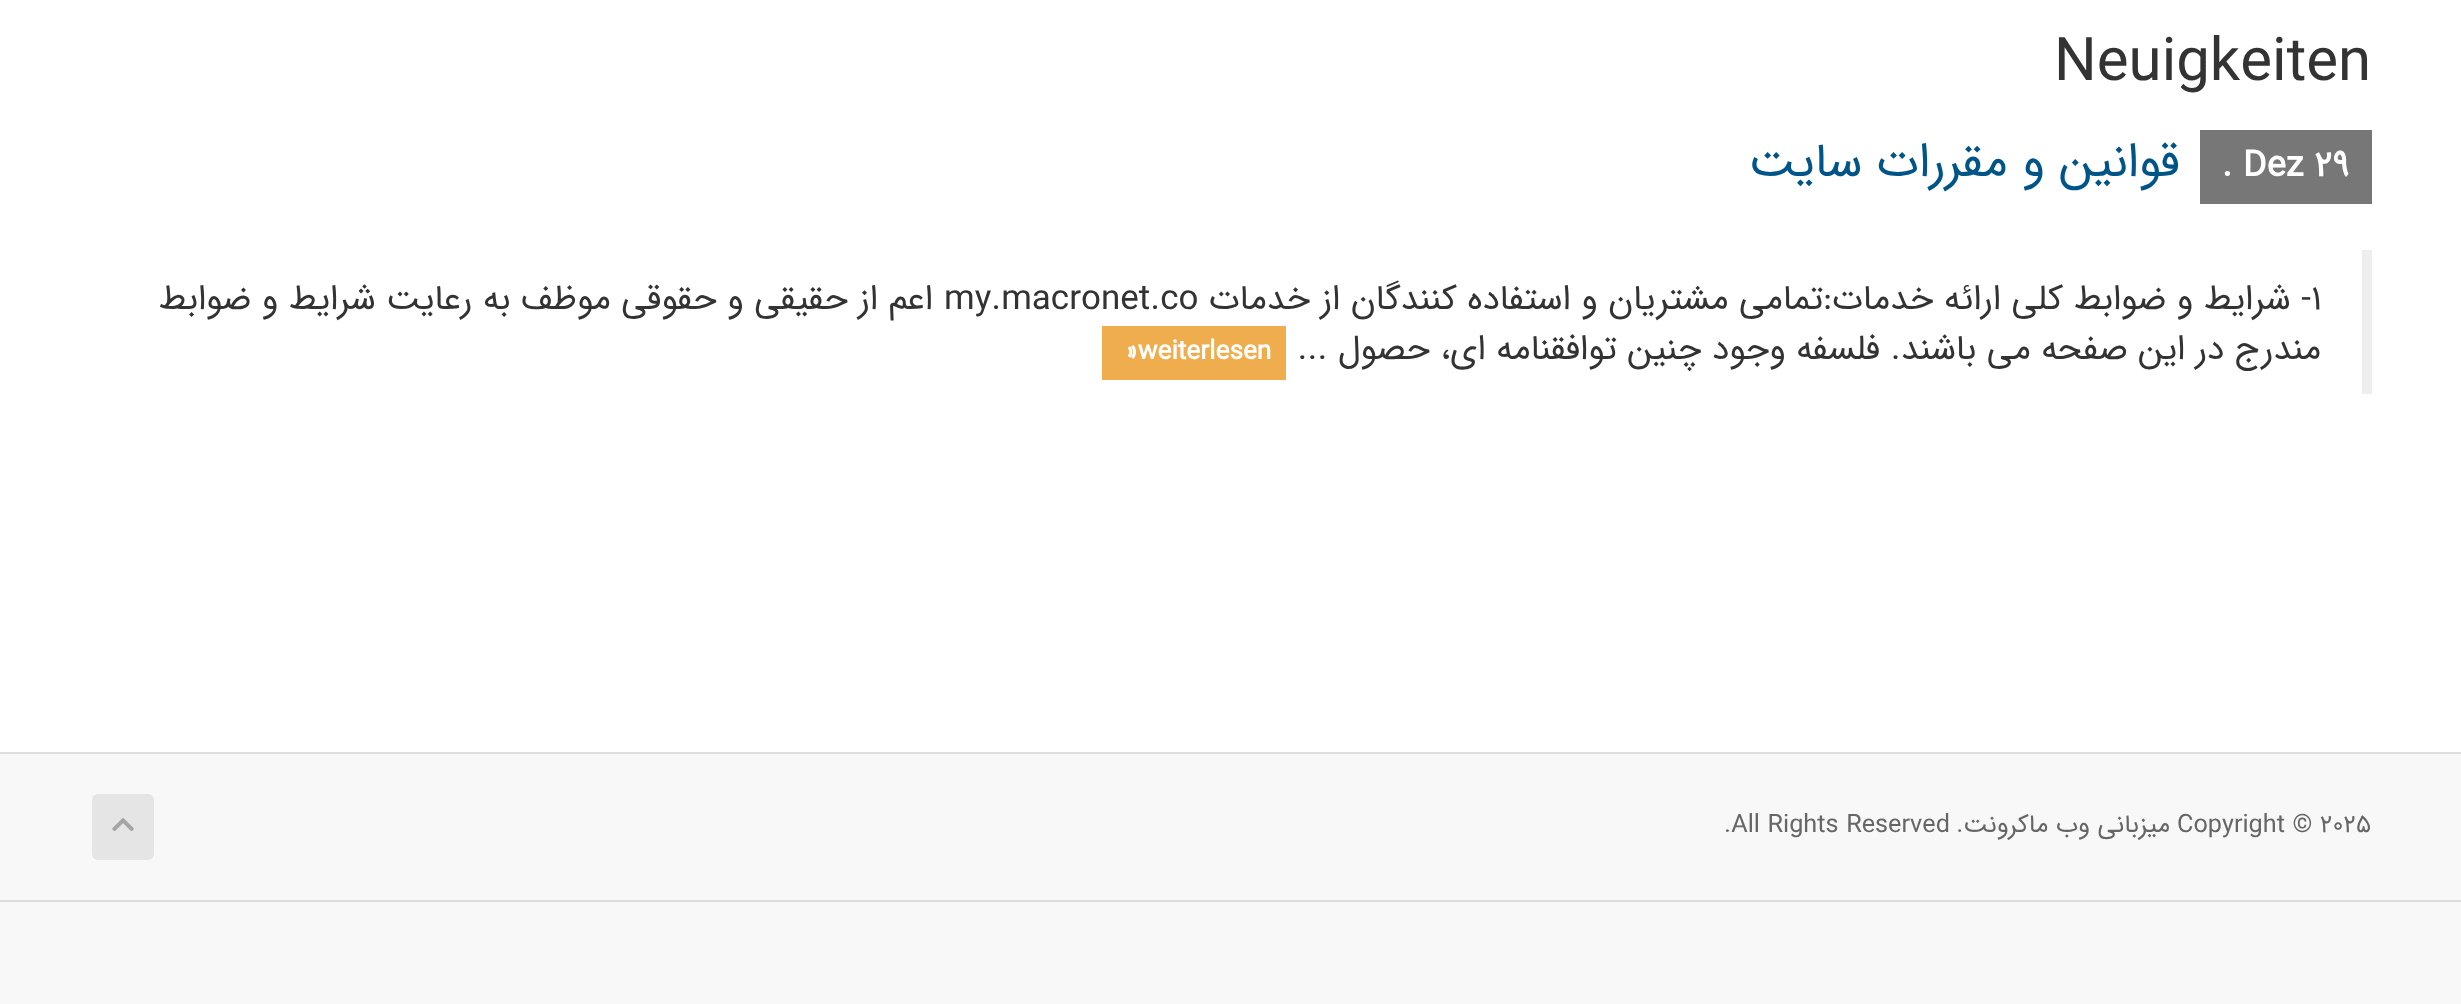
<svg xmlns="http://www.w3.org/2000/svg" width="2461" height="1004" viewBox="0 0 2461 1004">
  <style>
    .t1 { font: 60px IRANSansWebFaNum; fill: #333; }
    .t2 { font: bold 36px IRANSansWebFaNum; fill: #fff; }
    .t3 { font: 48px IRANSansWebFaNum; direction: rtl; fill: #058; }
    .t4 { font: 35px IRANSansWebFaNum; fill: #333; }
    .t5 { font: 35px IRANSansWebFaNum; direction: rtl; fill: #333; }
    .t6 { font: bold 26.25px IRANSansWebFaNum; fill: #fff; }
    .t7 { font: 25.25px IRANSansWebFaNum; fill: #666; }
    .t8 { font: 25.25px IRANSansWebFaNum; direction: rtl; fill: #666; }
  </style>
  <rect width="100%" height="100%" fill="#f8f8f8"/>
  <rect x="0" y="0" width="2461" height="752" fill="#fff"/>
  <text x="2054" y="80" class="t1">Neuigkeiten</text>
  <rect x="2200" y="130" width="172" height="74" fill="#777"/>
  <text x="2222" y="176" class="t2">. Dez 29</text>
  <text x="2180" y="176" class="t3">قوانین و مقررات سایت</text>
  <rect x="2362" y="250" width="10" height="144" fill="#eee"/>
  <text x="2311" y="309" class="t4">۱</text>
  <text x="2311" y="309" class="t5">- شرايط و ضوابط كلي ارائه خدمات:تمامي مشتريان و استفاده کنندگان از خدمات</text>
  <text x="944" y="309" class="t4">my.macronet.co</text>
  <text x="933" y="309" class="t5">اعم از حقيقي و حقوقي موظف به رعايت شرايط و ضوابط</text>
  <text x="2321" y="359" class="t5">مندرج در اين صفحه مي باشند. فلسفه وجود چنين توافقنامه اي، حصول ...</text>
  <rect x="1102" y="326" width="184" height="54" fill="#f0ad4e"/>
  <text x="1125" y="359" class="t6">»weiterlesen</text>
  <rect x="0" y="752" width="2461" height="2" fill="#ddd"/>
  <text x="2177" y="832" class="t7">Copyright © 2025</text>
  <text x="2170" y="832" class="t8">میزبانی وب ماکرونت.</text>
  <text x="1724" y="832" class="t7">.All Rights Reserved</text>
  <rect x="92" y="794" width="62" height="66" rx="6" fill="#e5e5e5"/>
  <image x="112" y="818" width="22" height="13" href="images/1.png"/>
  <rect x="0" y="900" width="2461" height="2" fill="#ddd"/>
</svg>
